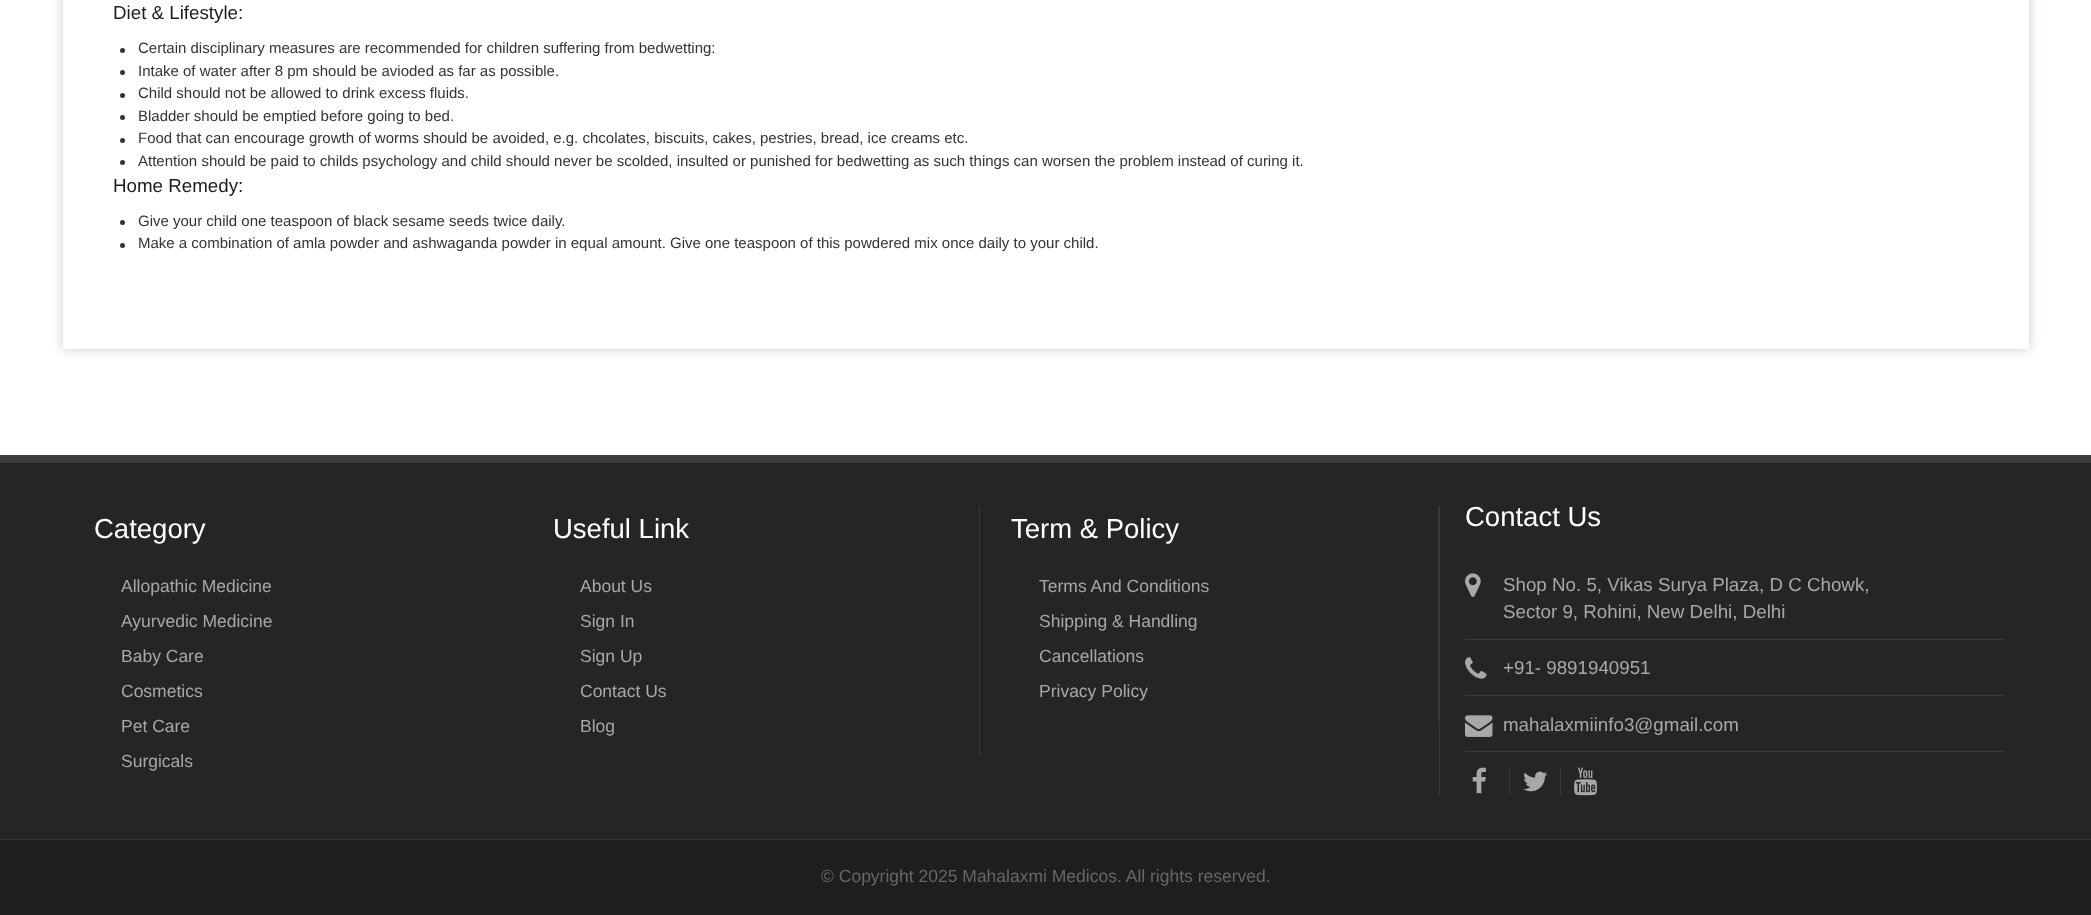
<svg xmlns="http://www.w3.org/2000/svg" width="2091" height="915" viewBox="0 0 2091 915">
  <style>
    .t1 { font: 18.75px Liberation Sans; fill: #1c1c1c; }
    .t2 { font: 15px Liberation Sans; fill: #333; }
    .t3 { font: 27.5px Liberation Sans; fill: #fff; }
    .t4 { font: 17.5px Liberation Sans; fill: #a8a8a8; }
    .t5 { font: 18.75px Liberation Sans; fill: #a8a8a8; }
    .t6 { font: 17.5px Liberation Sans; fill: #676767; }
  </style>
  <rect width="100%" height="100%" fill="#fff"/>
  <rect x="63" y="-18" width="1966" height="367" fill="#ccc" filter="blur(6px)"/>
  <rect x="63" y="0" width="1966" height="349" fill="#fff"/>
  <text x="113" y="19" class="t1">Diet &amp; Lifestyle:</text>
  <circle cx="122.5" cy="50.5" r="2.5" fill="#333"/>
  <text x="138" y="53" class="t2">Certain disciplinary measures are recommended for children suffering from bedwetting:</text>
  <circle cx="122.5" cy="72.5" r="2.5" fill="#333"/>
  <text x="138" y="76" class="t2">Intake of water after 8 pm should be avioded as far as possible.</text>
  <circle cx="122.5" cy="95.5" r="2.5" fill="#333"/>
  <text x="138" y="98" class="t2">Child should not be allowed to drink excess fluids.</text>
  <circle cx="122.5" cy="117.5" r="2.5" fill="#333"/>
  <text x="138" y="121" class="t2">Bladder should be emptied before going to bed.</text>
  <circle cx="122.5" cy="140.5" r="2.5" fill="#333"/>
  <text x="138" y="143" class="t2">Food that can encourage growth of worms should be avoided, e.g. chcolates, biscuits, cakes, pestries, bread, ice creams etc.</text>
  <circle cx="122.5" cy="162.5" r="2.5" fill="#333"/>
  <text x="138" y="166" class="t2">Attention should be paid to childs psychology and child should never be scolded, insulted or punished for bedwetting as such things can worsen the problem instead of curing it.</text>
  <text x="113" y="192" class="t1">Home Remedy:</text>
  <circle cx="122.5" cy="222.5" r="2.5" fill="#333"/>
  <text x="138" y="226" class="t2">Give your child one teaspoon of black sesame seeds twice daily.</text>
  <circle cx="122.5" cy="245.5" r="2.5" fill="#333"/>
  <text x="138" y="248" class="t2">Make a combination of amla powder and ashwaganda powder in equal amount. Give one teaspoon of this powdered mix once daily to your child.</text>
  <rect x="0" y="463" width="2091" height="376" fill="#252526"/>
  <rect x="0" y="455" width="2091" height="8" fill="#3c3c3e"/>
  <text x="94" y="538" class="t3">Category</text>
  <text x="121" y="592" class="t4">Allopathic Medicine</text>
  <text x="121" y="627" class="t4">Ayurvedic Medicine</text>
  <text x="121" y="662" class="t4">Baby Care</text>
  <text x="121" y="697" class="t4">Cosmetics</text>
  <text x="121" y="732" class="t4">Pet Care</text>
  <text x="121" y="767" class="t4">Surgicals</text>
  <rect x="979" y="506" width="1" height="250" fill="#38383a"/>
  <text x="553" y="538" class="t3">Useful Link</text>
  <text x="580" y="592" class="t4">About Us</text>
  <text x="580" y="627" class="t4">Sign In</text>
  <text x="580" y="662" class="t4">Sign Up</text>
  <text x="580" y="697" class="t4">Contact Us</text>
  <text x="580" y="732" class="t4">Blog</text>
  <rect x="1438" y="506" width="1" height="215" fill="#38383a"/>
  <text x="1011" y="538" class="t3">Term &amp; Policy</text>
  <text x="1039" y="592" class="t4">Terms And Conditions</text>
  <text x="1039" y="627" class="t4">Shipping &amp; Handling</text>
  <text x="1039" y="662" class="t4">Cancellations</text>
  <text x="1039" y="697" class="t4">Privacy Policy</text>
  <rect x="1439" y="506" width="1" height="289" fill="#38383a"/>
  <text x="1465" y="526" class="t3">Contact Us</text>
  <rect x="1465" y="639" width="539" height="1" fill="#38383a"/>
  <image x="1465" y="573" width="16" height="24" href="images/1.png"/>
  <text x="1503" y="591" class="t5">Shop No. 5, Vikas Surya Plaza, D C Chowk,</text>
  <text x="1503" y="618" class="t5">Sector 9, Rohini, New Delhi, Delhi</text>
  <rect x="1465" y="695" width="539" height="1" fill="#38383a"/>
  <image x="1465" y="657" width="22" height="22" href="images/2.png"/>
  <text x="1503" y="674" class="t5">+91- 9891940951</text>
  <rect x="1465" y="751" width="539" height="1" fill="#38383a"/>
  <image x="1465" y="715" width="28" height="22" href="images/3.png"/>
  <text x="1503" y="731" class="t5">mahalaxmiinfo3@gmail.com</text>
  <rect x="1509" y="768" width="1" height="27" fill="#38383a"/>
  <image x="1472" y="767" width="14" height="27" href="images/4.png"/>
  <rect x="1560" y="768" width="1" height="27" fill="#38383a"/>
  <image x="1523" y="771" width="25" height="21" href="images/5.png"/>
  <image x="1574" y="767" width="23" height="29" href="images/6.png"/>
  <rect x="0" y="840" width="2091" height="75" fill="#1e1e1f"/>
  <rect x="0" y="839" width="2091" height="1" fill="#323234"/>
  <text x="821" y="882" class="t6">© Copyright 2025 Mahalaxmi Medicos. All rights reserved.</text>
</svg>
